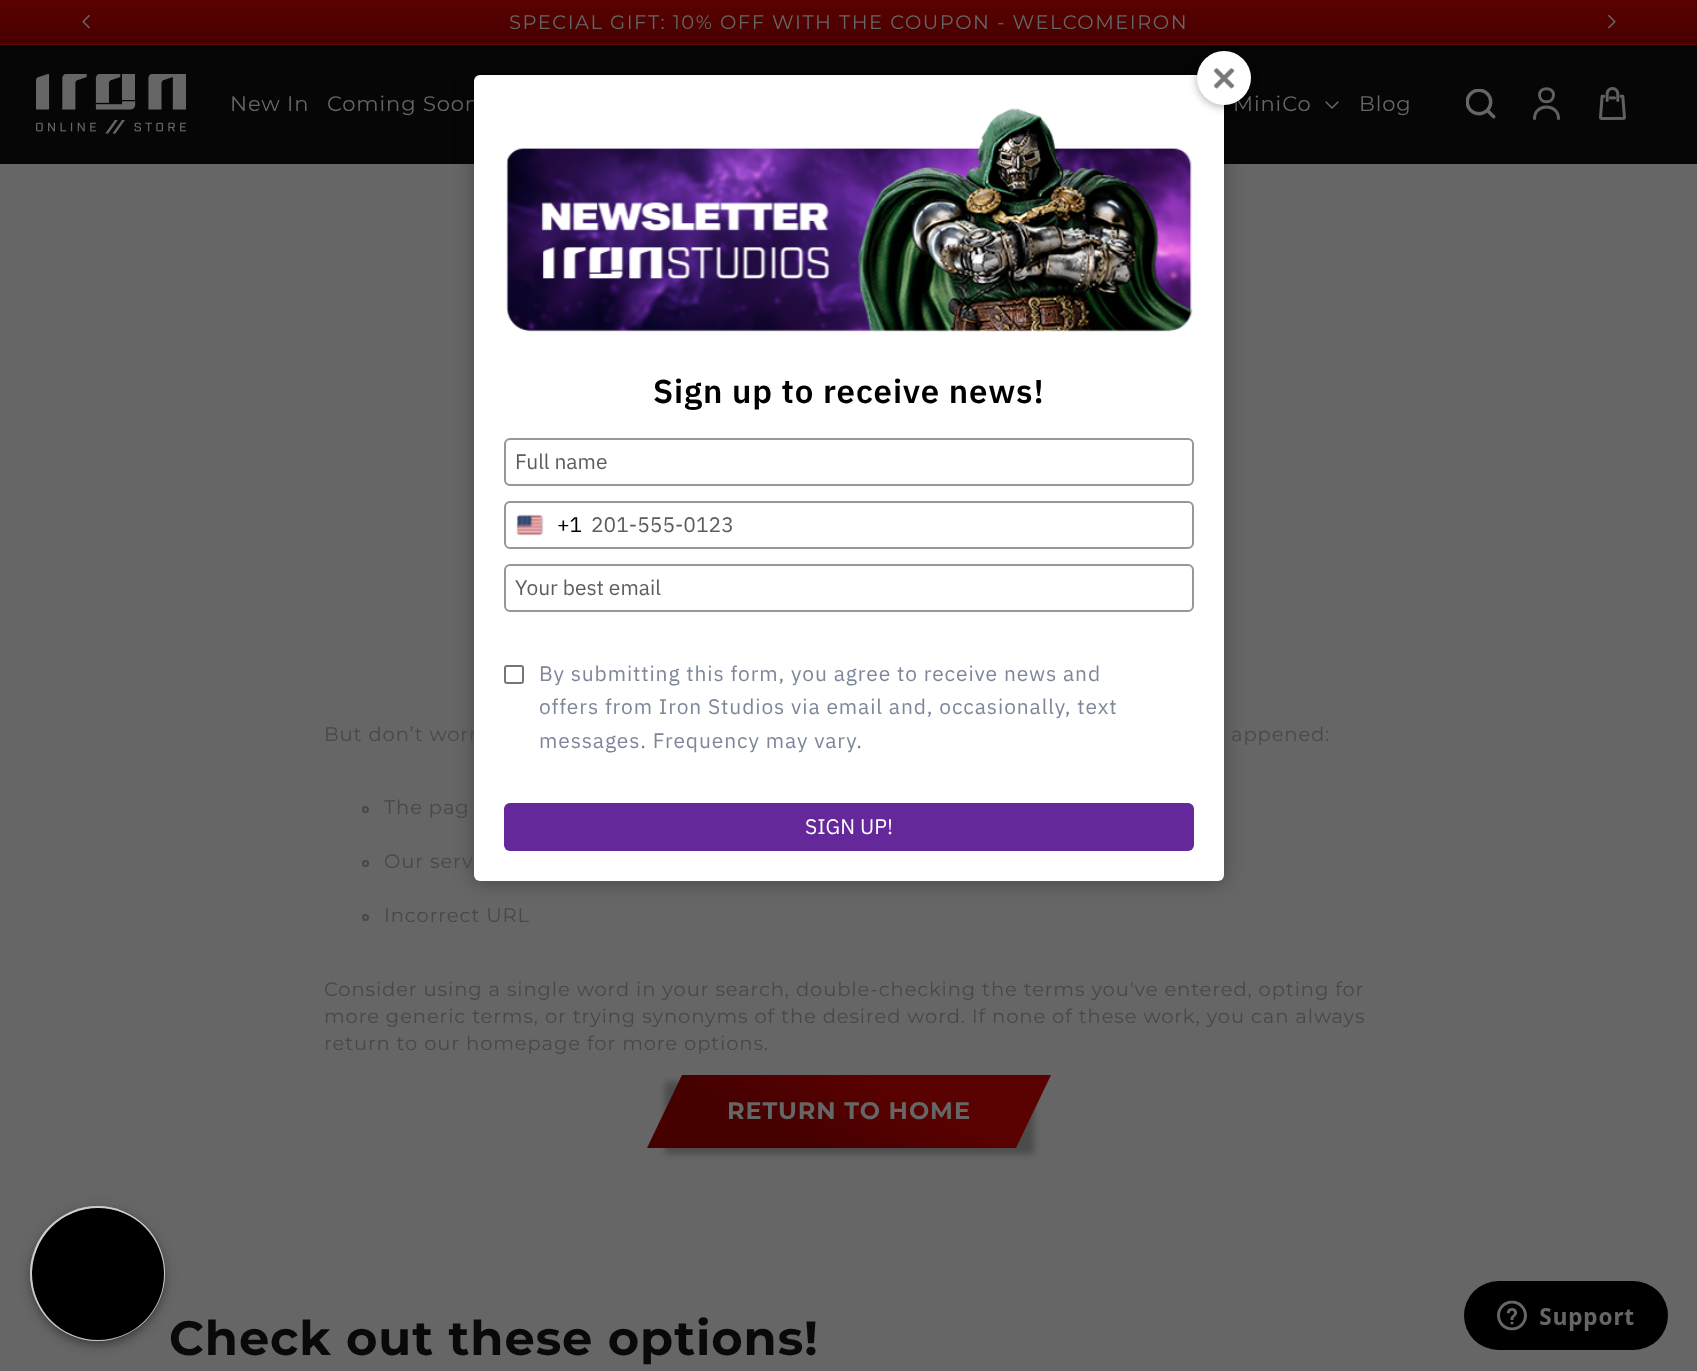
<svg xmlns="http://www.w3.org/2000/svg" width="1697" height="1371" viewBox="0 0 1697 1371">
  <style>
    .t1 { font: 19.5px Montserrat; letter-spacing: 1.5px; fill: #666; }
    .t2 { font: 21px Montserrat; letter-spacing: 0.9px; fill: #666; }
    .t3 { font: 19.5px Montserrat; letter-spacing: 0.9px; fill: #484848; }
    .t4 { font: 600 33px IBM Plex Sans; letter-spacing: 0.9px; fill: #000; }
    .t5 { font: 21px IBM Plex Sans; fill: #5d5d5d; }
    .t6 { font: 21px IBM Plex Sans; fill: #000; }
    .t7 { font: 21px IBM Plex Sans; letter-spacing: 0.9px; fill: #7d8799; }
    .t8 { font: 21px IBM Plex Sans; fill: #fff; }
    .t9 { font: bold 24px Montserrat; letter-spacing: 0.9px; fill: #666; }
    .t10 { font: bold 48px Montserrat; letter-spacing: 0.9px; fill: #090909; }
  </style>
  <defs>
    <linearGradient id="g1" gradientUnits="userSpaceOnUse" x1="849" y1="0" x2="849" y2="44"><stop offset="0" stop-color="#5a0101"/><stop offset="1" stop-color="#470000"/></linearGradient>
    <linearGradient id="g2" gradientUnits="userSpaceOnUse" x1="849" y1="43" x2="849" y2="87"><stop offset="0" stop-color="#5a0808"/><stop offset="1" stop-color="#490808"/></linearGradient>
    <linearGradient id="g3" gradientUnits="userSpaceOnUse" x1="866" y1="1075" x2="832" y2="1148"><stop offset="0" stop-color="#5a0101"/><stop offset="1" stop-color="#470000"/></linearGradient>
  </defs>
  <rect width="100%" height="100%" fill="#666"/>
  <rect x="0" y="0" width="1697" height="44" fill="url(#g1)"/>
  <rect x="0" y="44" width="1697" height="1" fill="url(#g2)"/>
  <image x="82" y="15" width="8" height="14" href="images/1.png"/>
  <text x="509" y="29" class="t1">SPECIAL GIFT: 10% OFF WITH THE COUPON - WELCOMEIRON</text>
  <image x="1608" y="15" width="8" height="14" href="images/2.png"/>
  <rect x="0" y="45" width="1697" height="119" fill="#060606"/>
  <image x="36" y="74" width="150" height="60" href="images/3.png"/>
  <text x="230" y="111" class="t2">New In</text>
  <text x="327" y="111" class="t2">Coming Soon</text>
  <text x="1233" y="111" class="t2">MiniCo</text>
  <image x="1325" y="101" width="14" height="8" href="images/4.png"/>
  <text x="1359" y="111" class="t2">Blog</text>
  <image x="1466" y="89" width="30" height="30" href="images/5.png"/>
  <path d="M1534.5 118.5C1534.5 103 1558.5 103 1558.5 118.5M1553.5 95C1553.5 104 1539.5 104 1539.5 95C1539.5 86.5 1553.5 86.5 1553.5 95Z" fill="none" stroke="#606060" stroke-width="3" stroke-linecap="round" stroke-linejoin="round"/>
  <image x="1599" y="87" width="27" height="33" href="images/6.png"/>
  <rect x="474" y="77" width="750" height="805" rx="6" fill="#0000004d" filter="blur(10px)"/>
  <text x="324" y="741" class="t3">But don’t worr</text>
  <rect x="474" y="75" width="750" height="806" rx="6" fill="#fff"/>
  <image x="506" y="108" width="687" height="224" href="images/8.png"/>
  <rect x="1197" y="53" width="54" height="54" rx="27" fill="#0000004d" filter="blur(4px)"/>
  <circle cx="1224" cy="78" r="27" fill="#fff"/>
  <image x="1213" y="68" width="22" height="21" href="images/7.png"/>
  <text x="653" y="403" class="t4">Sign up to receive news!</text>
  <rect x="505" y="439" width="688" height="46" rx="5" fill="none" stroke="#979797" stroke-width="2"/>
  <text x="515" y="469" class="t5">Full name</text>
  <rect x="505" y="502" width="688" height="46" rx="5" fill="none" stroke="#979797" stroke-width="2"/>
  <rect x="518" y="516" width="24" height="18" rx="1.5" fill="#888" filter="blur(1px)"/>
  <image x="517" y="515" width="25" height="20" href="images/9.png"/>
  <text x="557" y="532" class="t6">+1</text>
  <text x="591" y="532" class="t5">201-555-0123</text>
  <rect x="505" y="565" width="688" height="46" rx="5" fill="none" stroke="#979797" stroke-width="2"/>
  <text x="515" y="595" class="t5">Your best email</text>
  <rect x="505" y="666" width="18" height="17" rx="2" fill="none" stroke="#767676" stroke-width="2"/>
  <text x="539" y="681" class="t7">By submitting this form, you agree to receive news and</text>
  <text x="539" y="714" class="t7">offers from Iron Studios via email and, occasionally, text</text>
  <text x="539" y="748" class="t7">messages. Frequency may vary.</text>
  <rect x="504" y="803" width="690" height="48" rx="6" fill="#64289b"/>
  <text x="805" y="834" class="t8">SIGN UP!</text>
  <rect x="30" y="1208" width="135" height="135" rx="67.5" fill="#0000001f" filter="blur(7.5px)"/>
  <rect x="30" y="1212" width="135" height="135" rx="67.5" fill="#00000024" filter="blur(4px)"/>
  <rect x="32" y="1211" width="132" height="132" rx="66" fill="#00000033" filter="blur(3px)"/>
  <circle cx="97.5" cy="1273.5" r="67.5" fill="#fff"/>
  <circle cx="97.5" cy="1273.5" r="66.5" fill="none" stroke="#00000033" stroke-width="2"/>
  <circle cx="98" cy="1274" r="66" fill="#000"/>
  <text x="1231" y="741" class="t3">appened:</text>
  <circle cx="365.5" cy="809.5" r="2.5" fill="none" stroke="#484848" stroke-width="2"/>
  <text x="384" y="814" class="t3">The pag</text>
  <circle cx="365.5" cy="863.5" r="2.5" fill="none" stroke="#484848" stroke-width="2"/>
  <text x="384" y="868" class="t3">Our serv</text>
  <circle cx="365.5" cy="917.5" r="2.5" fill="none" stroke="#484848" stroke-width="2"/>
  <text x="384" y="922" class="t3">Incorrect URL</text>
  <text x="324" y="996" class="t3">Consider using a single word in your search, double-checking the terms you've entered, opting for</text>
  <text x="324" y="1023" class="t3">more generic terms, or trying synonyms of the desired word. If none of these work, you can always</text>
  <text x="324" y="1050" class="t3">return to our homepage for more options.</text>
  <rect x="665" y="1082" width="369" height="72" fill="#00000040" filter="blur(3px)"/>
  <path d="M682 1075H1051L1016 1148H647Z" fill="url(#g3)"/>
  <text x="727" y="1119" class="t9">RETURN TO HOME</text>
  <text x="169" y="1355" class="t10">Check out these options!</text>
  <image x="1464" y="1281" width="204" height="69" href="images/10.png"/>
</svg>
